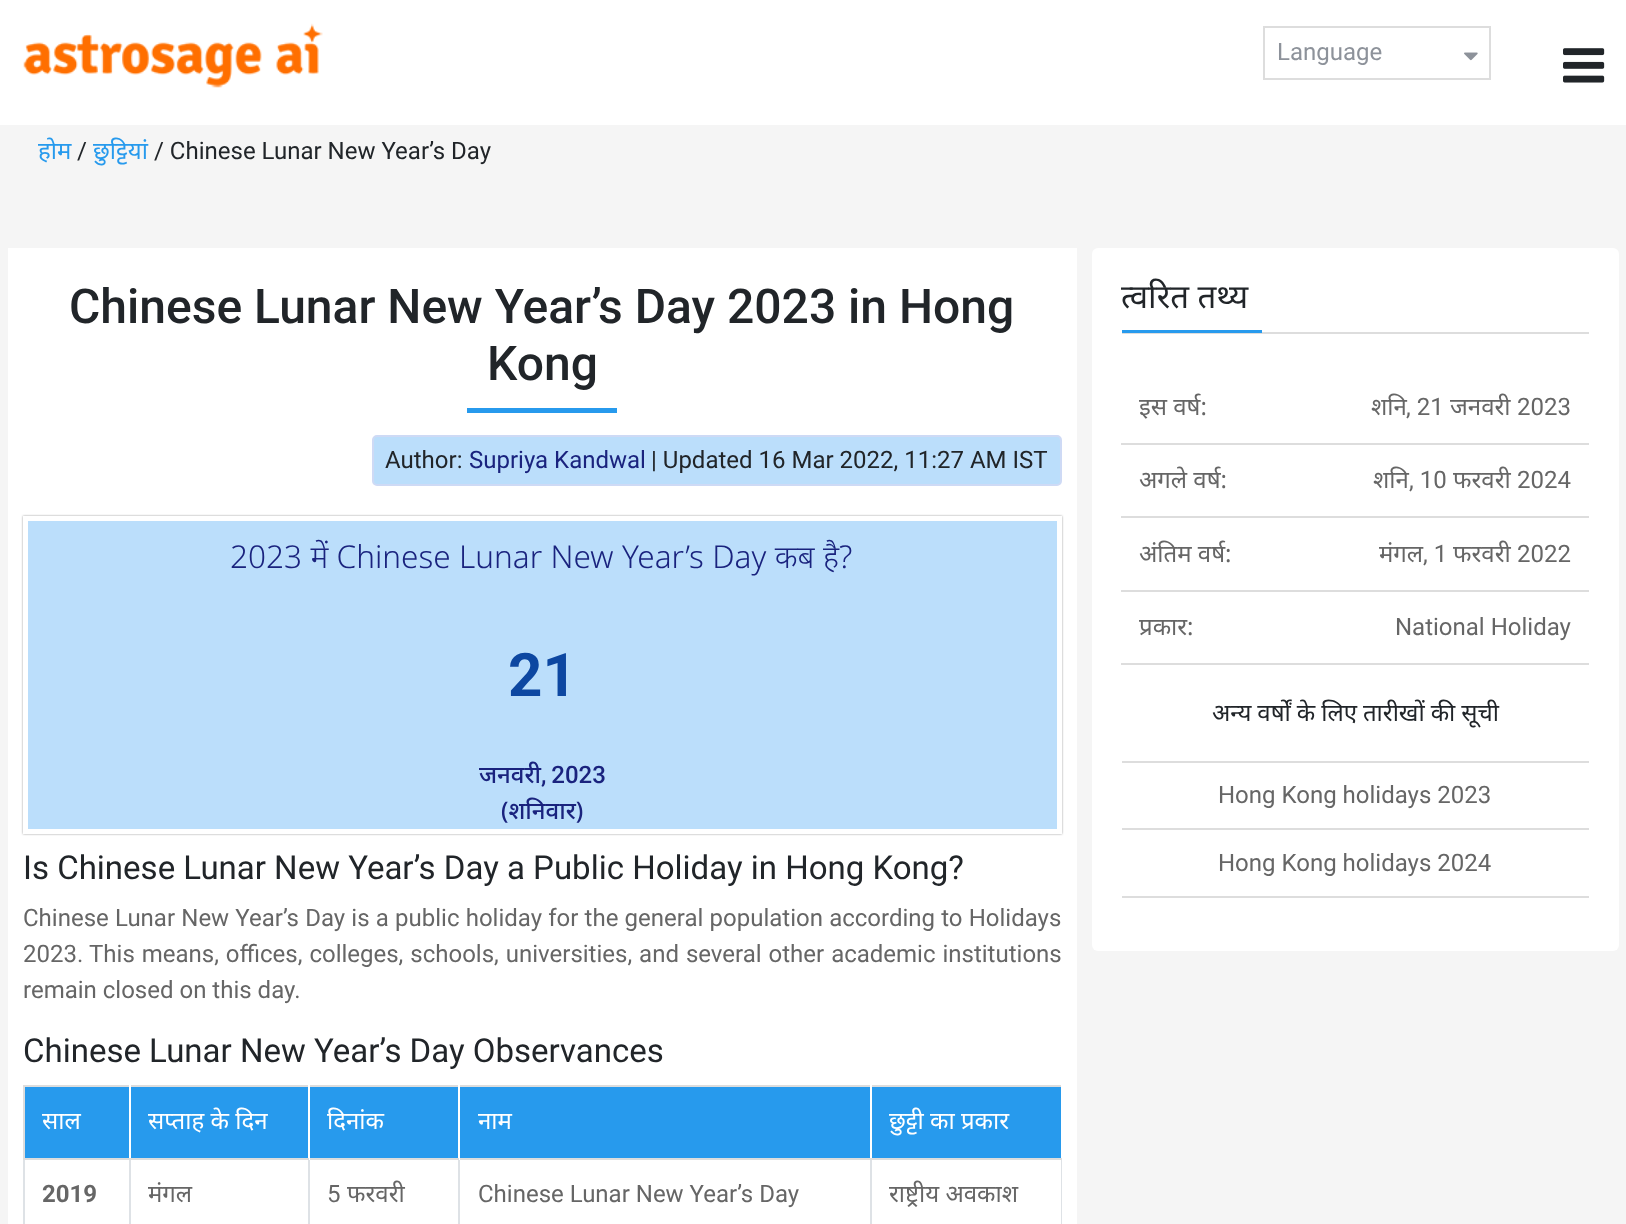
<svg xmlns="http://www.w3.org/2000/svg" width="1626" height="1224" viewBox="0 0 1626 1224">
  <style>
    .t1 { font: 24px Roboto; fill: #8d929a; }
    .t2 { font: 24px Noto Sans; fill: #279aed; }
    .t3 { font: 24px Roboto; fill: #212529; }
    .t4 { font: 500 48px Roboto; fill: #212529; }
    .t5 { font: 24px Roboto; fill: #1a237e; }
    .t6 { font: 300 31.5px Noto Sans; fill: #1a237e; }
    .t7 { font: bold 60px Roboto; fill: #0d47a1; }
    .t8 { font: 500 24px Noto Sans; fill: #1a237e; }
    .t9 { font: 500 24px Roboto; fill: #1a237e; }
    .t10 { font: 33px Roboto; fill: #212529; }
    .t11 { font: 24px Roboto; fill: #666; }
    .t12 { font: 24px Noto Sans; fill: #fff; }
    .t13 { font: bold 24px Roboto; fill: #666; }
    .t14 { font: 24px Noto Sans; fill: #666; }
    .t15 { font: 33px Noto Sans; fill: #212529; }
    .t16 { font: 24px Noto Sans; fill: #212529; }
  </style>
  <rect width="100%" height="100%" fill="#fff"/>
  <image x="23" y="23" width="300" height="65" href="images/1.png"/>
  <rect x="1264" y="27" width="226" height="52" fill="none" stroke="#ddd" stroke-width="2"/>
  <text x="1277" y="60" class="t1">Language</text>
  <image x="1464" y="52" width="14" height="9" href="images/2.png"/>
  <image x="1563" y="48" width="42" height="35" href="images/3.png"/>
  <rect x="0" y="125" width="1626" height="1099" fill="#f5f5f5"/>
  <text x="38" y="159" class="t2">होम</text>
  <text x="77" y="159" class="t3">/</text>
  <text x="93" y="159" class="t2">छुट्टियां</text>
  <text x="154" y="159" class="t3">/ Chinese Lunar New Year’s Day</text>
  <rect x="8" y="248" width="1069" height="976" fill="#fff"/>
  <text x="69" y="323" class="t4">Chinese Lunar New Year’s Day 2023 in Hong</text>
  <text x="487" y="380" class="t4">Kong</text>
  <rect x="467" y="408" width="150" height="5" fill="#279aed"/>
  <rect x="373" y="436" width="688" height="49" rx="4" fill="#bbdefb" stroke="#cedaf5" stroke-width="2"/>
  <text x="385" y="468" class="t3">Author:</text>
  <text x="469" y="468" class="t5">Supriya Kandwal</text>
  <text x="651" y="468" class="t3">| Updated 16 Mar 2022, 11:27 AM IST</text>
  <rect x="23" y="516" width="1039" height="318" fill="#999" filter="blur(1px)"/>
  <rect x="25.5" y="518.5" width="1034" height="313" fill="#bbdefb" stroke="#fff" stroke-width="5"/>
  <text x="230" y="568" word-spacing="0.25" class="t6">2023 में Chinese Lunar New Year’s Day कब है?</text>
  <text x="508" y="696" class="t7">21</text>
  <text x="479" y="783" class="t8">जनवरी</text>
  <text x="541" y="783" word-spacing="-1" class="t9">, 2023</text>
  <text x="501" y="819" class="t8">(शनिवार)</text>
  <text x="23" y="879" class="t10">Is Chinese Lunar New Year’s Day a Public Holiday in Hong Kong?</text>
  <text x="23" y="926" word-spacing="0.25" class="t11">Chinese Lunar New Year’s Day is a public holiday for the general population according to Holidays</text>
  <text x="23" y="962" class="t11">2023.</text>
  <text x="89" y="962" word-spacing="1" class="t11">This means, offices, colleges, schools, universities, and several other academic institutions</text>
  <text x="23" y="998" class="t11">remain closed on this day.</text>
  <text x="23" y="1062" class="t10">Chinese Lunar New Year’s Day Observances</text>
  <rect x="25" y="1087" width="104" height="71" fill="#279aed"/>
  <rect x="23" y="1085" width="1039" height="2" fill="#ddd"/>
  <rect x="1061" y="1158" width="1" height="66" fill="#dee2e6"/>
  <rect x="1061" y="1085" width="1" height="75" fill="#fff"/>
  <rect x="870" y="1158" width="2" height="66" fill="#dee2e6"/>
  <rect x="870" y="1158" width="192" height="2" fill="#ddd"/>
  <rect x="870" y="1085" width="2" height="75" fill="#fff"/>
  <rect x="458" y="1158" width="2" height="66" fill="#dee2e6"/>
  <rect x="458" y="1158" width="414" height="2" fill="#ddd"/>
  <rect x="458" y="1085" width="2" height="75" fill="#fff"/>
  <rect x="308" y="1158" width="2" height="66" fill="#dee2e6"/>
  <rect x="308" y="1158" width="151" height="2" fill="#ddd"/>
  <rect x="308" y="1085" width="2" height="75" fill="#fff"/>
  <rect x="129" y="1158" width="2" height="66" fill="#dee2e6"/>
  <rect x="129" y="1158" width="180" height="2" fill="#ddd"/>
  <rect x="129" y="1085" width="2" height="75" fill="#fff"/>
  <rect x="23" y="1158" width="2" height="66" fill="#dee2e6"/>
  <rect x="23" y="1158" width="108" height="2" fill="#ddd"/>
  <rect x="23" y="1085" width="2" height="75" fill="#ddd"/>
  <text x="42" y="1129" class="t12">साल</text>
  <rect x="131" y="1087" width="177" height="71" fill="#279aed"/>
  <text x="148" y="1129" class="t12">सप्ताह के दिन</text>
  <rect x="310" y="1087" width="148" height="71" fill="#279aed"/>
  <text x="327" y="1129" class="t12">दिनांक</text>
  <rect x="460" y="1087" width="410" height="71" fill="#279aed"/>
  <text x="478" y="1129" class="t12">नाम</text>
  <rect x="872" y="1087" width="189" height="71" fill="#279aed"/>
  <text x="889" y="1129" class="t12">छुट्टी का प्रकार</text>
  <text x="42" y="1202" class="t13">2019</text>
  <text x="148" y="1202" class="t14">मंगल</text>
  <text x="327" y="1202" class="t11">5</text>
  <text x="347" y="1202" class="t14">फरवरी</text>
  <text x="478" y="1202" class="t11">Chinese Lunar New Year’s Day</text>
  <text x="889" y="1202" class="t14">राष्ट्रीय अवकाश</text>
  <rect x="1092" y="248" width="527" height="703" rx="6" fill="#fff"/>
  <rect x="1122" y="332" width="467" height="2" fill="#ddd"/>
  <text x="1121" y="308" class="t15">त्वरित तथ्य</text>
  <rect x="1122" y="330" width="140" height="3" fill="#279aed"/>
  <text x="1139" y="415" class="t14">इस वर्ष:</text>
  <rect x="1121" y="443" width="468" height="2" fill="#ddd"/>
  <text x="1371" y="415" class="t14">शनि</text>
  <text x="1406" y="415" class="t11">, 21</text>
  <text x="1450" y="415" class="t14">जनवरी</text>
  <text x="1517" y="415" class="t11">2023</text>
  <text x="1139" y="488" class="t14">अगले वर्ष:</text>
  <rect x="1121" y="516" width="468" height="2" fill="#ddd"/>
  <text x="1373" y="488" class="t14">शनि</text>
  <text x="1409" y="488" class="t11">, 10</text>
  <text x="1453" y="488" class="t14">फरवरी</text>
  <text x="1517" y="488" class="t11">2024</text>
  <text x="1139" y="562" class="t14">अंतिम वर्ष:</text>
  <rect x="1121" y="590" width="468" height="2" fill="#ddd"/>
  <text x="1379" y="562" class="t14">मंगल</text>
  <text x="1423" y="562" class="t11">, 1</text>
  <text x="1453" y="562" class="t14">फरवरी</text>
  <text x="1517" y="562" class="t11">2022</text>
  <text x="1139" y="635" class="t14">प्रकार:</text>
  <rect x="1121" y="663" width="468" height="2" fill="#ddd"/>
  <text x="1395" y="635" class="t11">National Holiday</text>
  <text x="1212" y="721" word-spacing="-0.25" class="t16">अन्य वर्षों के लिए तारीखों की सूची</text>
  <rect x="1122" y="761" width="467" height="2" fill="#ddd"/>
  <rect x="1122" y="828" width="467" height="2" fill="#ddd"/>
  <text x="1218" y="803" class="t11">Hong Kong holidays 2023</text>
  <rect x="1122" y="896" width="467" height="2" fill="#ddd"/>
  <text x="1218" y="871" class="t11">Hong Kong holidays 2024</text>
</svg>
